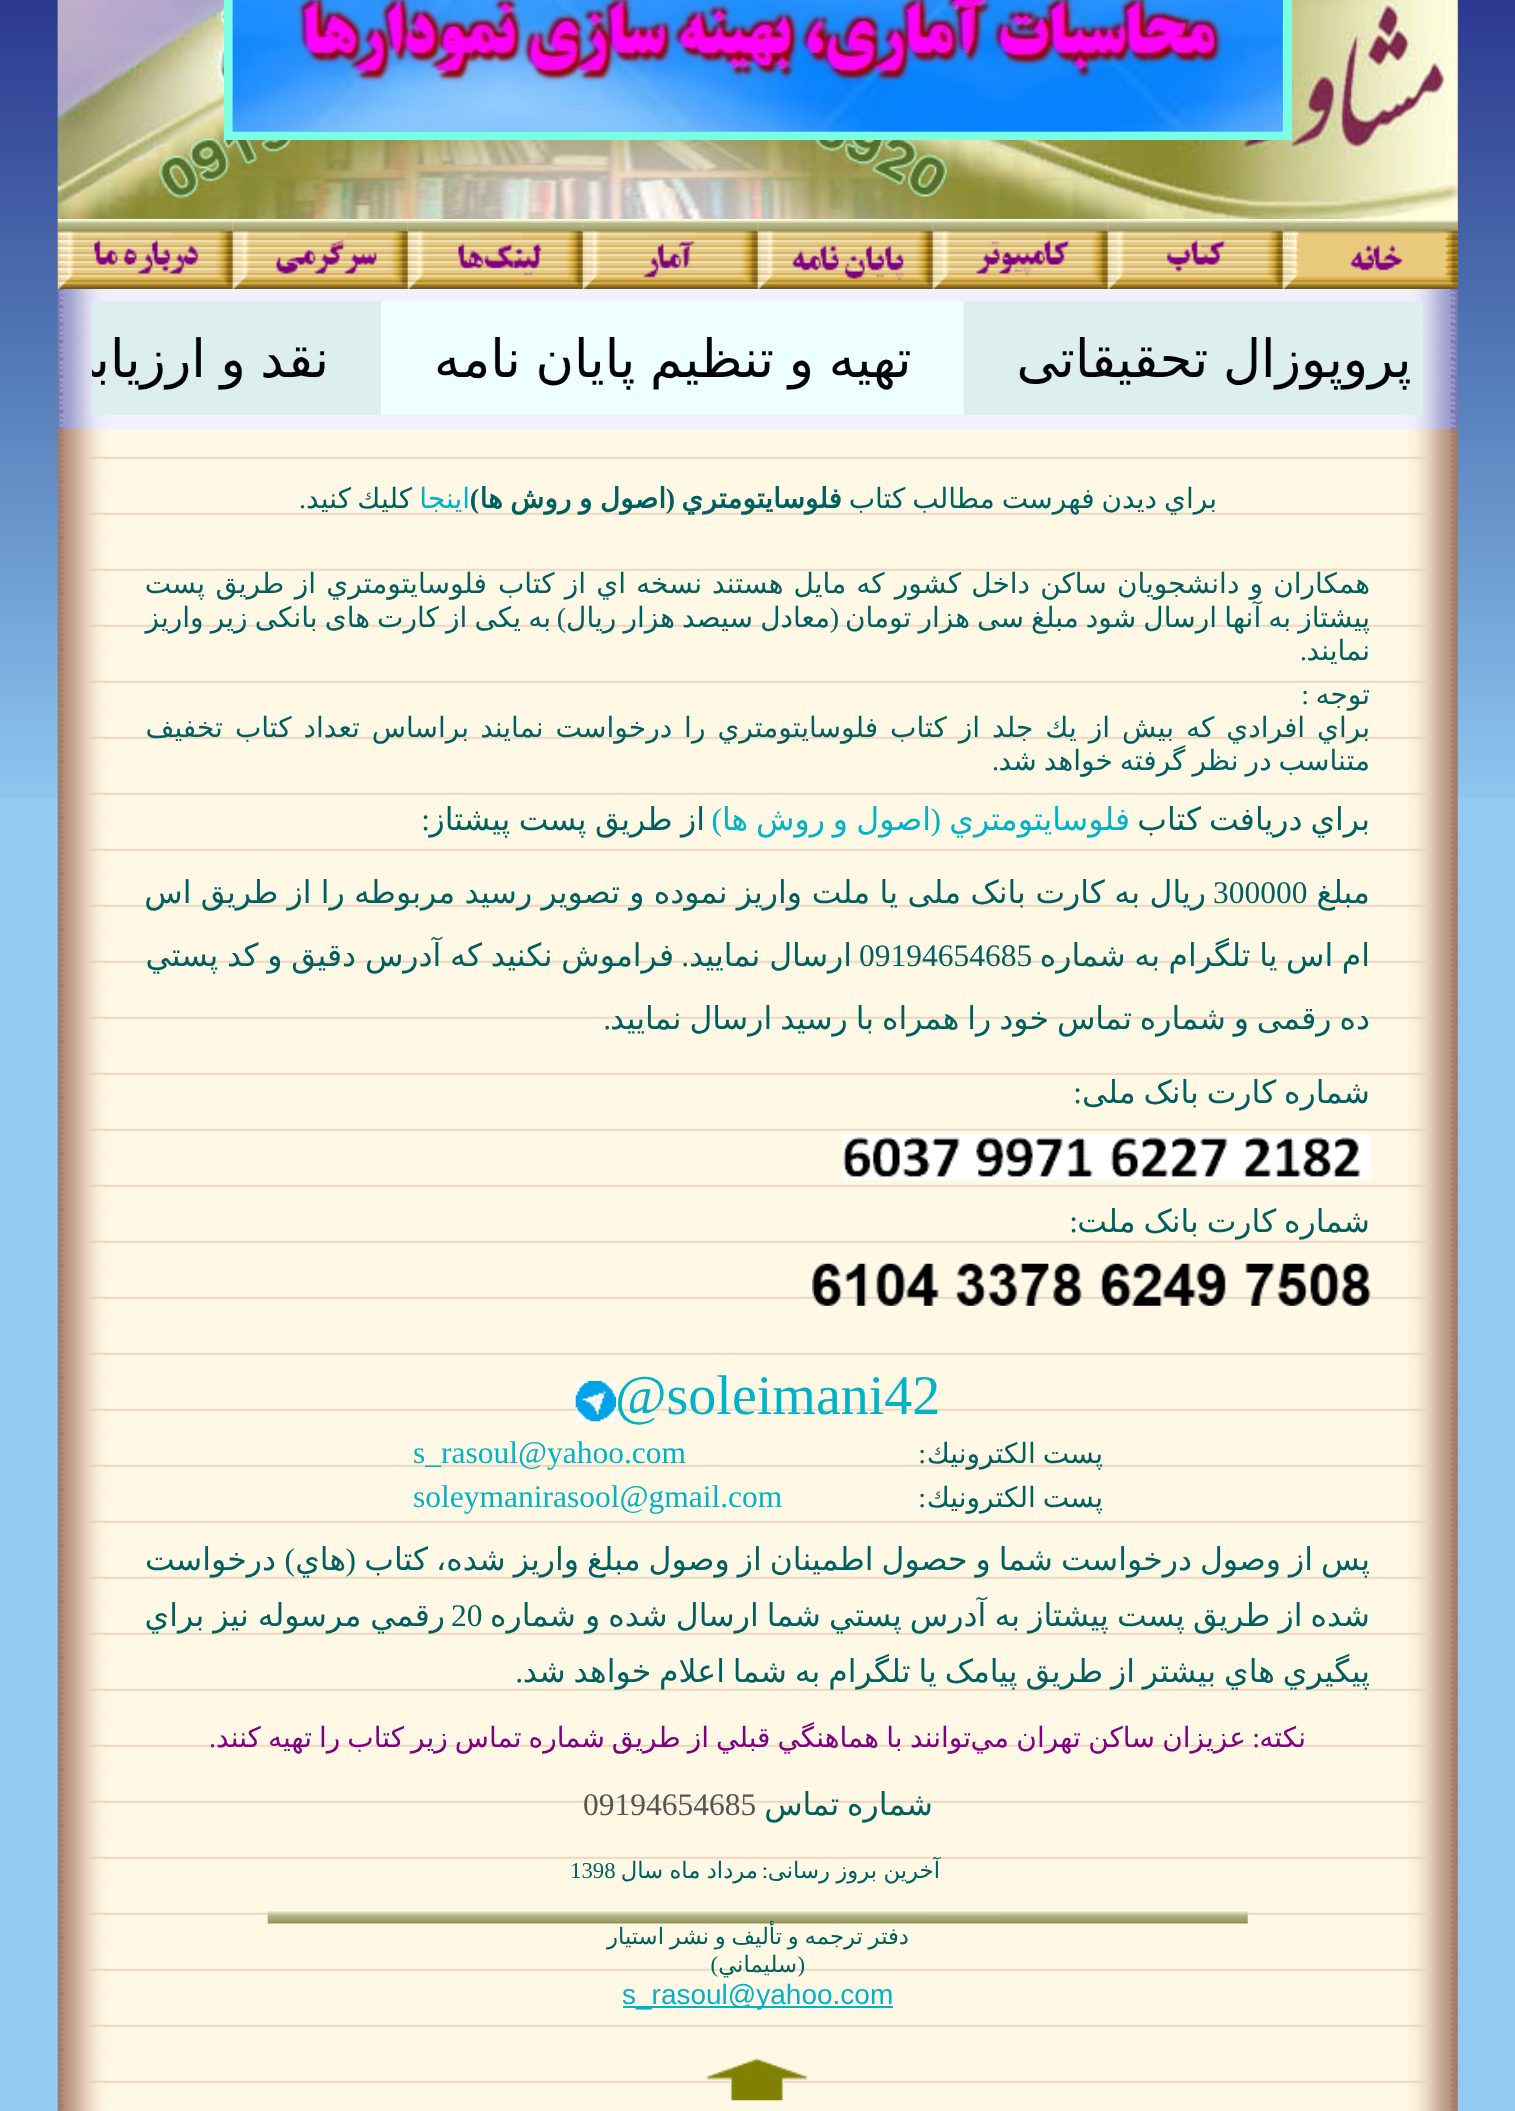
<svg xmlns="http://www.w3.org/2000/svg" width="1515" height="2111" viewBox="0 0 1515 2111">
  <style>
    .t1 { font: 28px DejaVu Sans; direction: rtl; fill: #006060; }
    .t2 { font: bold 28px DejaVu Sans; direction: rtl; fill: #006060; }
    .t3 { font: bold 28px Liberation Serif; direction: rtl; fill: #006060; }
    .t4 { font: 28px DejaVu Sans; direction: rtl; fill: #00b3c8; }
    .t5 { font: 28px Liberation Serif; direction: rtl; fill: #006060; }
    .t6 { font: 31.5px DejaVu Sans; direction: rtl; fill: #006060; }
    .t7 { font: 31.5px DejaVu Sans; direction: rtl; fill: #00b3c8; }
    .t8 { font: 31.5px Liberation Serif; direction: rtl; fill: #00b3c8; }
    .t9 { font: 31.5px Liberation Serif; direction: rtl; fill: #006060; }
    .t10 { font: 31.5px Liberation Serif; fill: #006060; }
    .t11 { font: 56px Liberation Serif; fill: #00b3c8; }
    .t12 { font: 31.5px Liberation Serif; fill: #00b3c8; }
    .t13 { font: 28px DejaVu Sans; direction: rtl; fill: #800080; }
    .t14 { font: 28px Liberation Serif; direction: rtl; fill: #800080; }
    .t15 { font: 31.5px Liberation Serif; fill: #555; }
    .t16 { font: 22.75px DejaVu Sans; direction: rtl; fill: #006060; }
    .t17 { font: 22.75px Liberation Serif; direction: rtl; fill: #006060; }
    .t18 { font: 22.75px Liberation Serif; fill: #006060; }
    .t19 { font: 28px Liberation Sans; fill: #00b3c8; }
  </style>
  <rect width="100%" height="100%" fill="#91cbf3"/>
  <image x="0" y="0" width="1515" height="798" href="images/1.png"/>
  <image x="57" y="0" width="1401" height="2111" href="images/2.png"/>
  <image x="57" y="0" width="1401" height="219" href="images/3.png"/>
  <rect x="224" y="0" width="1068" height="140" fill="#7affe4"/>
  <image x="232" y="0" width="1051" height="132" href="images/4.png"/>
  <image x="232" y="0" width="1051" height="132" href="images/5.png"/>
  <image x="1282" y="219" width="176" height="70" href="images/6.png"/>
  <image x="1107" y="219" width="176" height="70" href="images/7.png"/>
  <image x="932" y="219" width="176" height="70" href="images/8.png"/>
  <image x="757" y="219" width="176" height="70" href="images/9.png"/>
  <image x="582" y="219" width="176" height="70" href="images/10.png"/>
  <image x="407" y="219" width="176" height="70" href="images/11.png"/>
  <image x="232" y="219" width="176" height="70" href="images/12.png"/>
  <image x="57" y="219" width="176" height="70" href="images/13.png"/>
  <image x="57" y="289" width="1401" height="140" href="images/14.png"/>
  <image x="57" y="289" width="1401" height="140" href="images/15.png"/>
  <image x="92" y="301" width="1331" height="114" href="images/16.png"/>
  <text x="1217" y="508" word-spacing="-1.9" class="t1">براي ديدن فهرست مطالب كتاب</text>
  <text x="842" y="508" class="t2">فلوسايتومتري</text>
  <text x="666" y="508" word-spacing="-1.5" class="t2">اصول و روش ها</text>
  <text x="675" y="508" class="t3">(</text>
  <text x="479" y="508" class="t3">)</text>
  <text x="470" y="508" class="t4">اينجا</text>
  <text x="412" y="508" class="t1">كليك</text>
  <text x="351" y="508" class="t1">كنيد</text>
  <text x="306" y="508" class="t5">.</text>
  <text x="1370" y="593" word-spacing="1.25" class="t1">همكاران و دانشجويان ساكن داخل كشور كه مايل هستند نسخه اي از كتاب</text>
  <text x="487" y="593" word-spacing="1.5" class="t1">فلوسايتومتري از طریق پست</text>
  <text x="1370" y="627" word-spacing="-1.75" class="t1">پیشتاز به آنها ارسال شود مبلغ سی هزار تومان</text>
  <text x="830" y="627" word-spacing="-1.75" class="t1">معادل سیصد هزار ریال</text>
  <text x="551" y="627" word-spacing="-1.75" class="t1">به یکی از کارت های بانکی زیر واريز</text>
  <text x="839" y="627" class="t5">(</text>
  <text x="566" y="627" class="t5">)</text>
  <text x="1370" y="660" class="t1">نمايند</text>
  <text x="1307" y="660" class="t5">.</text>
  <text x="1370" y="704" class="t1">توجه</text>
  <text x="1309" y="704" class="t5">:</text>
  <text x="1370" y="737" word-spacing="3.1" class="t1">براي افرادي كه بيش از يك جلد از كتاب فلوسايتومتري را درخواست نمايند</text>
  <text x="469" y="737" word-spacing="3.1" class="t1">براساس تعداد كتاب تخفيف</text>
  <text x="1370" y="770" word-spacing="-1.9" class="t1">متناسب در نظر گرفته خواهد شد</text>
  <text x="999" y="770" class="t5">.</text>
  <text x="1370" y="830" word-spacing="-2.1" class="t6">براي دريافت كتاب</text>
  <text x="1130" y="830" class="t7">فلوسايتومتري</text>
  <text x="941" y="830" class="t8">(</text>
  <text x="931" y="830" class="t7">اصول</text>
  <text x="848" y="830" word-spacing="-2.1" class="t7">و روش ها</text>
  <text x="722" y="830" class="t8">)</text>
  <text x="705" y="830" word-spacing="-1.5" class="t6">از طريق پست پيشتاز</text>
  <text x="430" y="830" class="t9">:</text>
  <text x="1370" y="903" class="t6">مبلغ</text>
  <text x="1213" y="903" class="t10">300000</text>
  <text x="1206" y="903" word-spacing="-0.5" class="t6">ريال به کارت بانک ملی یا ملت</text>
  <text x="802" y="903" word-spacing="-0.75" class="t6">واريز نموده و تصویر رسید مربوطه را از طریق اس</text>
  <text x="1370" y="966" word-spacing="-1.5" class="t6">ام اس یا تلگرام به شماره</text>
  <text x="859" y="966" class="t10">09194654685</text>
  <text x="852" y="966" word-spacing="-1.25" class="t6">ارسال نماييد</text>
  <text x="689" y="966" class="t9">.</text>
  <text x="674" y="966" word-spacing="-1.25" class="t6">فراموش نكنيد كه آدرس دقيق و كد پستي</text>
  <text x="1370" y="1029" word-spacing="-2.1" class="t6">ده رقمی و شماره تماس خود را همراه با رسید ارسال نمایید</text>
  <text x="611" y="1029" class="t9">.</text>
  <text x="1370" y="1103" word-spacing="-2.1" class="t6">شماره كارت بانک ملی</text>
  <text x="1082" y="1103" class="t9">:</text>
  <image x="841" y="1134" width="530" height="46" href="images/17.png"/>
  <text x="1370" y="1232" word-spacing="-2.1" class="t6">شماره کارت بانک ملت</text>
  <text x="1078" y="1232" class="t9">:</text>
  <image x="812" y="1263" width="559" height="43" href="images/18.png"/>
  <text x="615" y="1414" class="t11">@soleimani42</text>
  <image x="575" y="1381" width="41" height="41" href="images/19.png"/>
  <text x="1103" y="1463" word-spacing="-1.9" class="t1">پست الكترونيك</text>
  <text x="926" y="1463" class="t5">:</text>
  <text x="413" y="1463" class="t12">s_rasoul@yahoo.com</text>
  <text x="1103" y="1507" word-spacing="-1.9" class="t1">پست الكترونيك</text>
  <text x="926" y="1507" class="t5">:</text>
  <text x="413" y="1507" class="t12">soleymanirasool@gmail.com</text>
  <text x="1370" y="1570" word-spacing="-2" class="t6">پس از وصول درخواست شما و حصول اطمينان از وصول مبلغ واريز شده،</text>
  <text x="428" y="1570" class="t6">كتاب</text>
  <text x="356" y="1570" class="t9">(</text>
  <text x="346" y="1570" class="t6">هاي</text>
  <text x="295" y="1570" class="t9">)</text>
  <text x="276" y="1570" class="t6">درخواست</text>
  <text x="1370" y="1626" word-spacing="-1.9" class="t6">شده از طريق پست پيشتاز به آدرس پستي شما ارسال شده و</text>
  <text x="576" y="1626" class="t6">شماره</text>
  <text x="451" y="1626" class="t10">20</text>
  <text x="445" y="1626" word-spacing="-1" class="t6">رقمي مرسوله نيز براي</text>
  <text x="1370" y="1682" word-spacing="-2.1" class="t6">پيگيري هاي بيشتر از طريق پیامک یا تلگرام به</text>
  <text x="787" y="1682" word-spacing="-2.1" class="t6">شما اعلام خواهد شد</text>
  <text x="523" y="1682" class="t9">.</text>
  <text x="1306" y="1747" class="t13">نكته</text>
  <text x="1260" y="1747" class="t14">:</text>
  <text x="1246" y="1747" word-spacing="-1.5" class="t13">عزيزان ساكن تهران مي</text>
  <text x="971" y="1747" word-spacing="-1.5" class="t13">توانند با</text>
  <text x="879" y="1747" word-spacing="-1.9" class="t13">هماهنگي قبلي از طريق شماره تماس زير كتاب را تهيه كنند</text>
  <text x="216" y="1747" class="t14">.</text>
  <text x="933" y="1815" word-spacing="-2.1" class="t6">شماره تماس</text>
  <text x="583" y="1815" class="t15">09194654685</text>
  <text x="940" y="1878" word-spacing="-1" class="t16">آخرین بروز رسانی</text>
  <text x="768" y="1878" class="t17">:</text>
  <text x="758" y="1878" word-spacing="-1" class="t16">مرداد ماه سال</text>
  <text x="570" y="1878" class="t18">1398</text>
  <image x="267" y="1910" width="981" height="14" href="images/20.png"/>
  <text x="909" y="1944" word-spacing="-1.5" class="t16">دفتر ترجمه و تأليف و نشر</text>
  <text x="664" y="1944" class="t16">استيار</text>
  <text x="805" y="1972" class="t17">(</text>
  <text x="797" y="1972" class="t16">سليماني</text>
  <text x="718" y="1972" class="t17">)</text>
  <rect x="623" y="2006" width="270" height="2" fill="#00b3c8"/>
  <text x="622" y="2004" class="t19">s_rasoul@yahoo.com</text>
  <image x="705" y="2058" width="104" height="43" href="images/21.png"/>
</svg>
